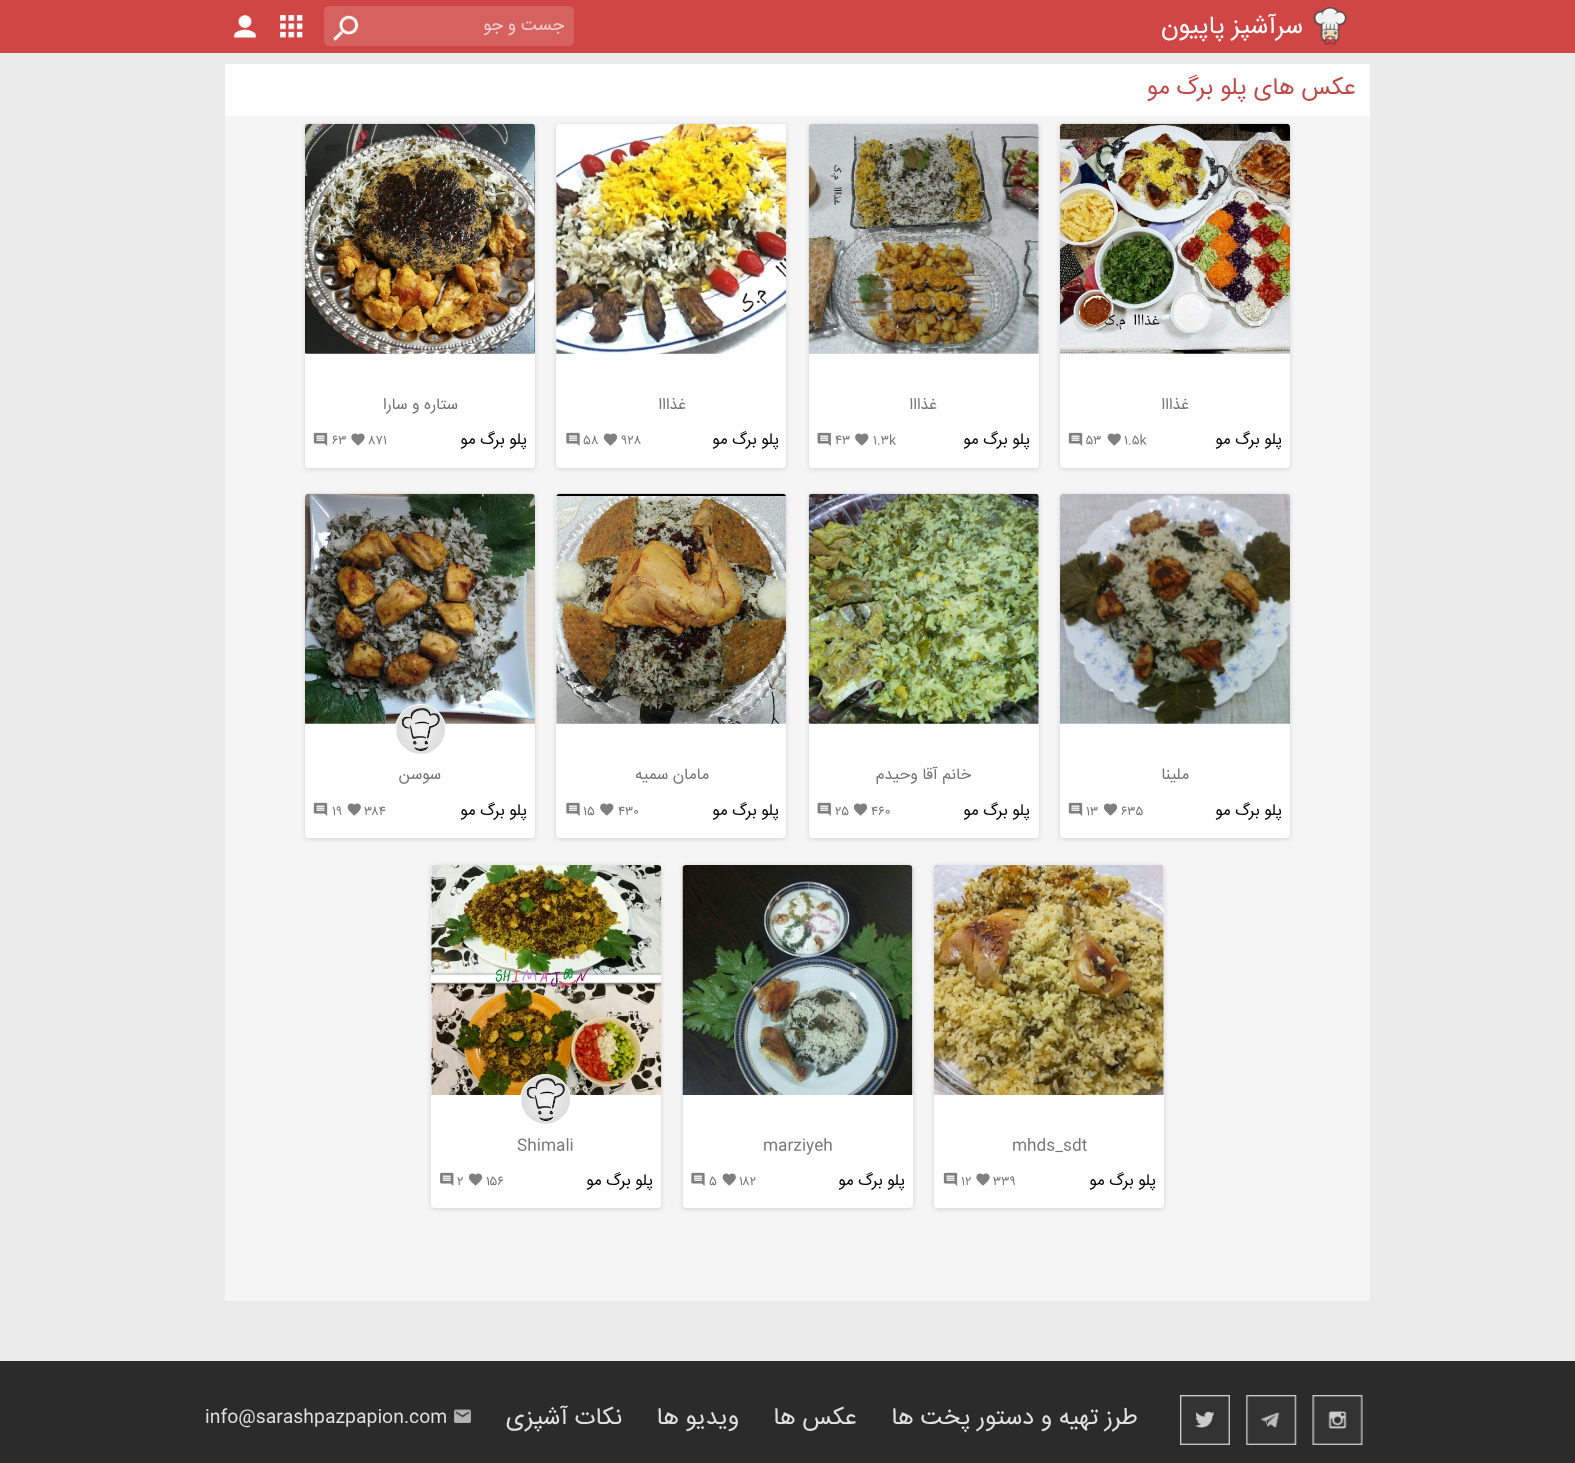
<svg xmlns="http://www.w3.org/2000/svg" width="1575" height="1463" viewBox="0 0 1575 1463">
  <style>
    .t1 { font: 25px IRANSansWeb; direction: rtl; fill: #fff; }
    .t2 { font: 17.5px IRANSansWeb; direction: rtl; fill: #f3d0cf; }
    .t3 { font: 24px IRANSansWeb; direction: rtl; fill: #bd4a48; }
    .t4 { font: 16px IRANSansWeb; direction: rtl; fill: #757575; }
    .t5 { font: 16px IRANSansWeb; direction: rtl; fill: #000; }
    .t6 { font: 13px IRANSansWeb; fill: #757575; }
    .t7 { font: 16px IRANSansWeb; fill: #757575; }
    .t8 { font: 24px IRANSansWeb; direction: rtl; fill: #e1e1e1; }
    .t9 { font: 18px IRANSansWeb; fill: #e1e1e1; }
  </style>
  <rect width="100%" height="100%" fill="#ebebeb"/>
  <rect x="0" y="0" width="1575" height="53" fill="#cf4644"/>
  <image x="1313" y="7" width="34" height="38" href="images/1.png"/>
  <text x="1303" y="33" class="t1">سرآشپز پاپیون</text>
  <rect x="324" y="6" width="250" height="40" rx="5" fill="#d66260"/>
  <image x="333" y="15" width="26" height="26" href="images/2.png"/>
  <text x="564" y="30" class="t2">جست و جو</text>
  <image x="280" y="15" width="23" height="23" href="images/3.png"/>
  <image x="233" y="15" width="24" height="24" href="images/4.png"/>
  <rect x="225" y="64" width="1145" height="52" fill="#fff"/>
  <text x="1356" y="94" class="t3">عکس های پلو برگ مو</text>
  <rect x="225" y="116" width="1145" height="1185" fill="#f5f5f5"/>
  <rect x="1060" y="125" width="230" height="344" rx="4" fill="#00000024" filter="blur(2.5px)"/>
  <rect x="1060" y="124" width="230" height="344" rx="4" fill="#fff"/>
  <image x="1060" y="123" width="230" height="231" href="images/5.png"/>
  <text x="1189" y="409" class="t4">غذااا</text>
  <text x="1282" y="444" class="t5">پلو برگ مو</text>
  <text x="1124" y="444" class="t6">۱.۵k</text>
  <image x="1107" y="433" width="14" height="13" href="images/6.png"/>
  <text x="1086" y="444" class="t6">۵۳</text>
  <image x="1068" y="432" width="15" height="14" href="images/7.png"/>
  <rect x="809" y="125" width="230" height="344" rx="4" fill="#00000024" filter="blur(2.5px)"/>
  <rect x="809" y="124" width="230" height="344" rx="4" fill="#fff"/>
  <image x="808" y="123" width="231" height="231" href="images/8.png"/>
  <text x="937" y="409" class="t4">غذااا</text>
  <text x="1030" y="444" class="t5">پلو برگ مو</text>
  <text x="873" y="444" class="t6">۱.۳k</text>
  <image x="855" y="433" width="14" height="13" href="images/9.png"/>
  <text x="835" y="444" class="t6">۴۳</text>
  <image x="817" y="432" width="14" height="14" href="images/10.png"/>
  <rect x="556" y="125" width="230" height="344" rx="4" fill="#00000024" filter="blur(2.5px)"/>
  <rect x="556" y="124" width="230" height="344" rx="4" fill="#fff"/>
  <image x="556" y="123" width="231" height="231" href="images/11.png"/>
  <text x="686" y="409" class="t4">غذااا</text>
  <text x="779" y="444" class="t5">پلو برگ مو</text>
  <text x="621" y="444" class="t6">۹۲۸</text>
  <image x="603" y="433" width="15" height="13" href="images/12.png"/>
  <text x="583" y="444" class="t6">۵۸</text>
  <image x="566" y="432" width="14" height="14" href="images/13.png"/>
  <rect x="305" y="125" width="230" height="344" rx="4" fill="#00000024" filter="blur(2.5px)"/>
  <rect x="305" y="124" width="230" height="344" rx="4" fill="#fff"/>
  <image x="305" y="123" width="230" height="231" href="images/14.png"/>
  <text x="458" y="409" class="t4">ستاره و سارا</text>
  <text x="527" y="444" class="t5">پلو برگ مو</text>
  <text x="369" y="444" class="t6">۸۷۱</text>
  <image x="351" y="433" width="14" height="13" href="images/15.png"/>
  <text x="332" y="444" class="t6">۶۳</text>
  <image x="313" y="432" width="15" height="14" href="images/7.png"/>
  <rect x="1060" y="495" width="230" height="344" rx="4" fill="#00000024" filter="blur(2.5px)"/>
  <rect x="1060" y="494" width="230" height="344" rx="4" fill="#fff"/>
  <image x="1060" y="493" width="230" height="231" href="images/16.png"/>
  <text x="1189" y="779" class="t4">ملینا</text>
  <text x="1282" y="815" class="t5">پلو برگ مو</text>
  <text x="1121" y="815" class="t6">۶۳۵</text>
  <image x="1103" y="803" width="15" height="13" href="images/12.png"/>
  <text x="1086" y="815" class="t6">۱۳</text>
  <image x="1068" y="802" width="15" height="14" href="images/7.png"/>
  <rect x="809" y="495" width="230" height="344" rx="4" fill="#00000024" filter="blur(2.5px)"/>
  <rect x="809" y="494" width="230" height="344" rx="4" fill="#fff"/>
  <image x="808" y="493" width="231" height="231" href="images/17.png"/>
  <text x="971" y="779" class="t4">خانم آقا وحیدم</text>
  <text x="1030" y="815" class="t5">پلو برگ مو</text>
  <text x="871" y="815" class="t6">۴۶۰</text>
  <image x="853" y="803" width="15" height="13" href="images/12.png"/>
  <text x="835" y="815" class="t6">۲۵</text>
  <image x="817" y="802" width="14" height="14" href="images/10.png"/>
  <rect x="556" y="495" width="230" height="344" rx="4" fill="#00000024" filter="blur(2.5px)"/>
  <rect x="556" y="494" width="230" height="344" rx="4" fill="#fff"/>
  <image x="556" y="493" width="231" height="231" href="images/18.png"/>
  <text x="709" y="779" class="t4">مامان سمیه</text>
  <text x="779" y="815" class="t5">پلو برگ مو</text>
  <text x="618" y="815" class="t6">۴۳۰</text>
  <image x="600" y="803" width="14" height="13" href="images/9.png"/>
  <text x="583" y="815" class="t6">۱۵</text>
  <image x="566" y="802" width="14" height="14" href="images/13.png"/>
  <rect x="305" y="495" width="230" height="344" rx="4" fill="#00000024" filter="blur(2.5px)"/>
  <rect x="305" y="494" width="230" height="344" rx="4" fill="#fff"/>
  <image x="305" y="493" width="230" height="231" href="images/19.png"/>
  <circle cx="420.5" cy="729.5" r="25" fill="#fff" stroke="#fff"/>
  <image x="396" y="705" width="49" height="49" href="images/20.png"/>
  <text x="441" y="779" class="t4">سوسن</text>
  <text x="527" y="815" class="t5">پلو برگ مو</text>
  <text x="364" y="815" class="t6">۳۸۴</text>
  <image x="347" y="803" width="14" height="13" href="images/6.png"/>
  <text x="332" y="815" class="t6">۱۹</text>
  <image x="313" y="802" width="15" height="14" href="images/7.png"/>
  <rect x="934" y="866" width="230" height="343" rx="4" fill="#00000024" filter="blur(2.5px)"/>
  <rect x="934" y="865" width="230" height="343" rx="4" fill="#fff"/>
  <image x="933" y="865" width="231" height="230" href="images/21.png"/>
  <text x="1012" y="1150" class="t7">mhds_sdt</text>
  <text x="1156" y="1185" class="t5">پلو برگ مو</text>
  <text x="993" y="1185" class="t6">۳۳۹</text>
  <image x="976" y="1173" width="14" height="13" href="images/15.png"/>
  <text x="961" y="1185" class="t6">۱۲</text>
  <image x="943" y="1172" width="15" height="14" href="images/7.png"/>
  <rect x="683" y="866" width="230" height="343" rx="4" fill="#00000024" filter="blur(2.5px)"/>
  <rect x="683" y="865" width="230" height="343" rx="4" fill="#fff"/>
  <image x="682" y="865" width="231" height="230" href="images/22.png"/>
  <text x="763" y="1150" class="t7">marziyeh</text>
  <text x="905" y="1185" class="t5">پلو برگ مو</text>
  <text x="739" y="1185" class="t6">۱۸۲</text>
  <image x="722" y="1173" width="14" height="13" href="images/6.png"/>
  <text x="709" y="1185" class="t6">۵</text>
  <image x="691" y="1172" width="14" height="14" href="images/13.png"/>
  <rect x="431" y="866" width="230" height="343" rx="4" fill="#00000024" filter="blur(2.5px)"/>
  <rect x="431" y="865" width="230" height="343" rx="4" fill="#fff"/>
  <image x="431" y="865" width="231" height="230" href="images/23.png"/>
  <circle cx="545.5" cy="1099.5" r="25" fill="#fff" stroke="#fff"/>
  <image x="521" y="1075" width="49" height="49" href="images/24.png"/>
  <text x="517" y="1150" class="t7">Shimali</text>
  <text x="653" y="1185" class="t5">پلو برگ مو</text>
  <text x="486" y="1185" class="t6">۱۵۶</text>
  <image x="468" y="1173" width="15" height="13" href="images/12.png"/>
  <text x="457" y="1185" class="t6">۲</text>
  <image x="440" y="1172" width="14" height="14" href="images/25.png"/>
  <rect x="0" y="1361" width="1575" height="102" fill="#2b2b2b"/>
  <image x="1312" y="1395" width="51" height="50" href="images/26.png"/>
  <image x="1246" y="1395" width="51" height="50" href="images/27.png"/>
  <image x="1180" y="1395" width="50" height="50" href="images/28.png"/>
  <text x="1138" y="1424" class="t8">طرز تهیه و دستور پخت ها</text>
  <text x="857" y="1424" class="t8">عکس ها</text>
  <text x="739" y="1424" class="t8">ویدیو ها</text>
  <text x="622" y="1424" class="t8">نکات آشپزی</text>
  <image x="454" y="1409" width="17" height="14" href="images/29.png"/>
  <text x="205" y="1422" class="t9">info@sarashpazpapion.com</text>
</svg>
